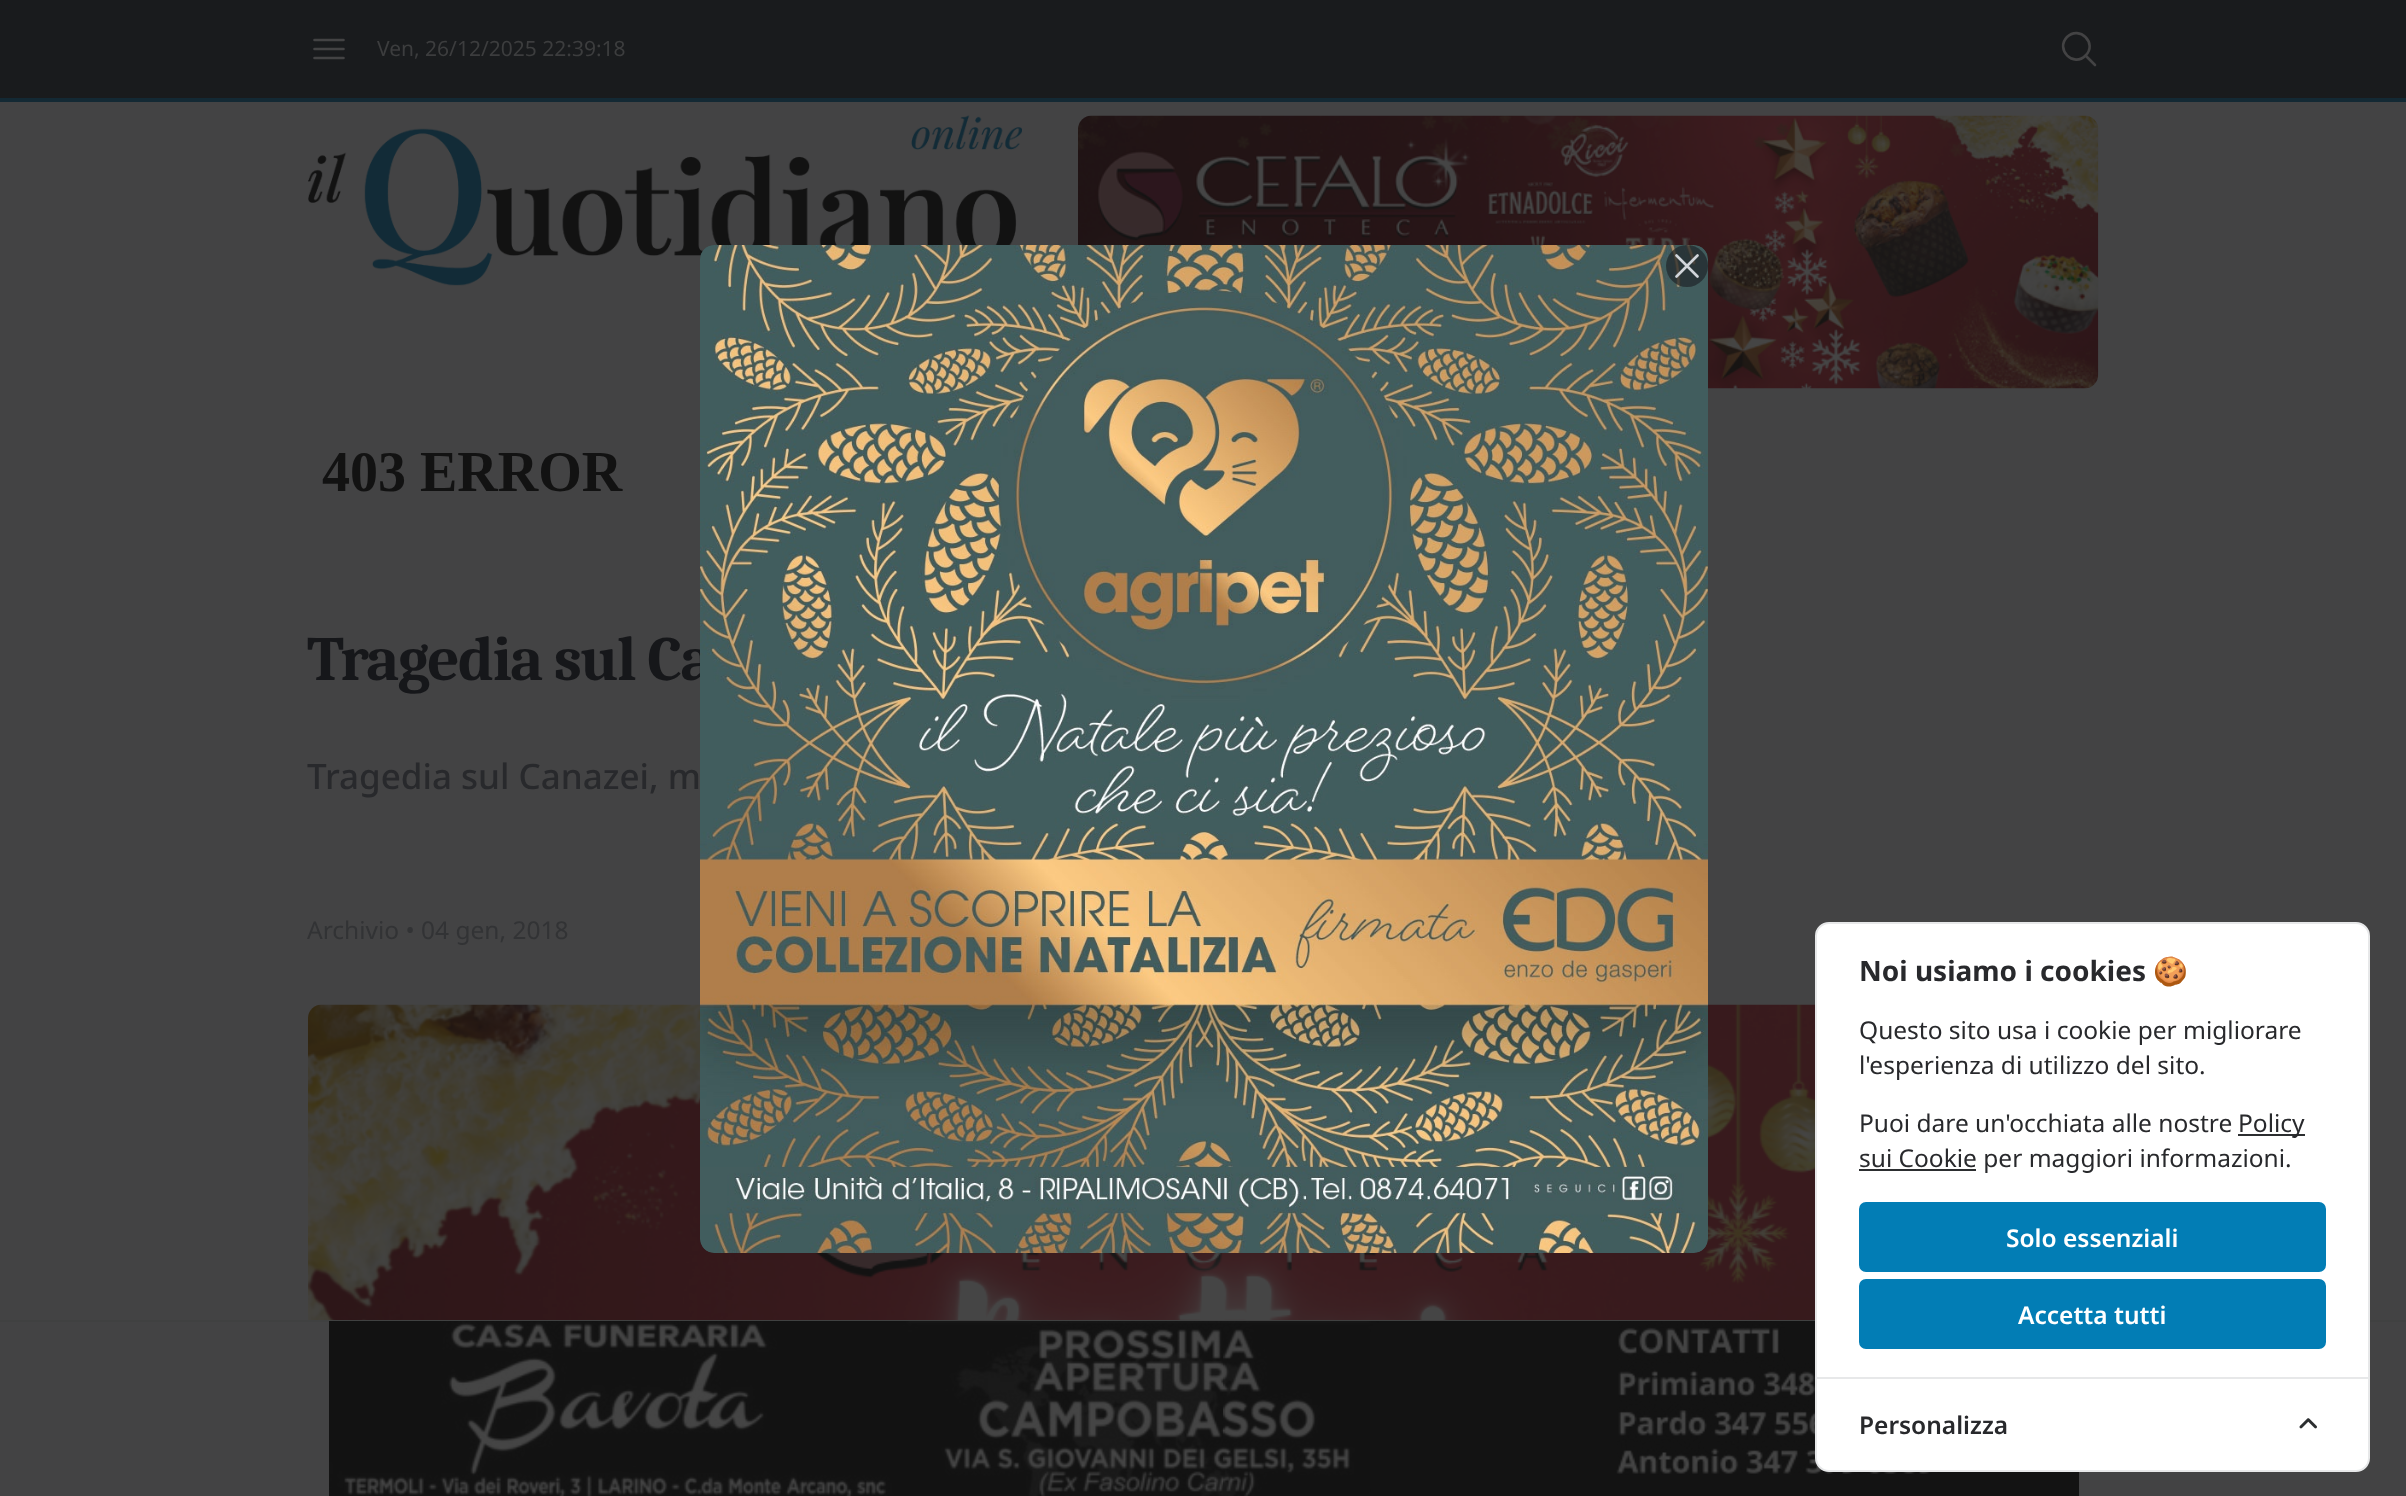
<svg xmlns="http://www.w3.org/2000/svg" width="2406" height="1496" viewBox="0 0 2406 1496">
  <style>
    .t1 { font: 21px Noto Sans; fill: #3c3d3e; }
    .t2 { font: bold 63px Caladea; letter-spacing: -1.6px; fill: #16171a; }
    .t3 { font: 500 35px Noto Sans; fill: #28292c; }
    .t4 { font: 24.5px Noto Sans; fill: #323335; }
    .t5 { font: bold 28px Noto Sans; fill: #28292c; }
    .t6 { font: bold 28px Noto Color Emoji; fill: #28292c; }
    .t7 { font: 24.5px Noto Sans; fill: #28292c; }
    .t8 { font: 600 24.5px Noto Sans; fill: #fff; }
    .t9 { font: 600 24.5px Noto Sans; fill: #28292c; }
  </style>
  <rect width="100%" height="100%" fill="#434344"/>
  <rect x="0" y="0" width="2406" height="98" fill="#191b1d"/>
  <rect x="0" y="98" width="2406" height="4" fill="#132934"/>
  <path d="M314.5 40H343.5M314.5 49H343.5M314.5 58H343.5" fill="none" stroke="#434344" stroke-width="2.6" stroke-linecap="round" stroke-linejoin="round"/>
  <text x="377" y="56" class="t1">Ven, 26/12/2025 22:39:18</text>
  <path d="M2095 65L2085.5 55.5M2085.5 55.5C2098 43.5 2079.5 25 2067 37C2055 49.5 2073.5 68 2085.5 55.5Z" fill="none" stroke="#434344" stroke-width="2.6" stroke-linecap="round" stroke-linejoin="round"/>
  <image x="308" y="115" width="714" height="171" href="images/1.png"/>
  <image x="1078" y="115" width="1021" height="274" href="images/2.png"/>
  <image x="322" y="453" width="301" height="39" href="images/3.png"/>
  <text x="307" y="680" class="t2">Tragedia sul Ca</text>
  <text x="307" y="789" class="t3">Tragedia sul Canazei, m</text>
  <text x="307" y="939" class="t4">Archivio • 04 gen, 2018</text>
  <image x="308" y="1004" width="1507" height="316" href="images/4.png"/>
  <rect x="0" y="1320" width="2406" height="2" fill="#404141"/>
  <image x="329" y="1321" width="1750" height="175" href="images/5.png"/>
  <image x="700" y="245" width="1008" height="1008" href="images/6.png"/>
  <circle cx="1687" cy="266" r="21" fill="#202529b3"/>
  <path d="M1676.5 276.5L1697.5 255.5M1676.5 255.5L1697.5 276.5" fill="none" stroke="#d1d5db" stroke-width="2.6" stroke-linecap="round" stroke-linejoin="round"/>
  <rect x="1816" y="923" width="553" height="548" rx="13" fill="#fff" stroke="#e7e8e9" stroke-width="2"/>
  <text x="1859" y="981" class="t5">Noi usiamo i cookies</text>
  <text x="2153" y="981" class="t6">🍪</text>
  <text x="1859" y="1039" class="t7">Questo sito usa i cookie per migliorare</text>
  <text x="1859" y="1074" class="t7">l'esperienza di utilizzo del sito.</text>
  <text x="1859" y="1132" class="t7">Puoi dare un'occhiata alle nostre</text>
  <rect x="2238" y="1134" width="67" height="2" fill="#2c2e30"/>
  <text x="2238" y="1132" class="t7">Policy</text>
  <rect x="1859" y="1169" width="117" height="2" fill="#2c2e30"/>
  <text x="1859" y="1167" class="t7">sui Cookie per maggiori informazioni.</text>
  <rect x="1860" y="1203" width="465" height="68" rx="6" fill="#027db5" stroke="#027db5" stroke-width="2"/>
  <text x="2006" y="1247" class="t8">Solo essenziali</text>
  <rect x="1860" y="1280" width="465" height="68" rx="6" fill="#027db5" stroke="#027db5" stroke-width="2"/>
  <text x="2018" y="1324" class="t8">Accetta tutti</text>
  <rect x="1817" y="1377" width="551" height="2" fill="#e7e8e9"/>
  <text x="1859" y="1434" class="t9">Personalizza</text>
  <image x="2299" y="1418" width="18" height="11" href="images/7.png"/>
</svg>
